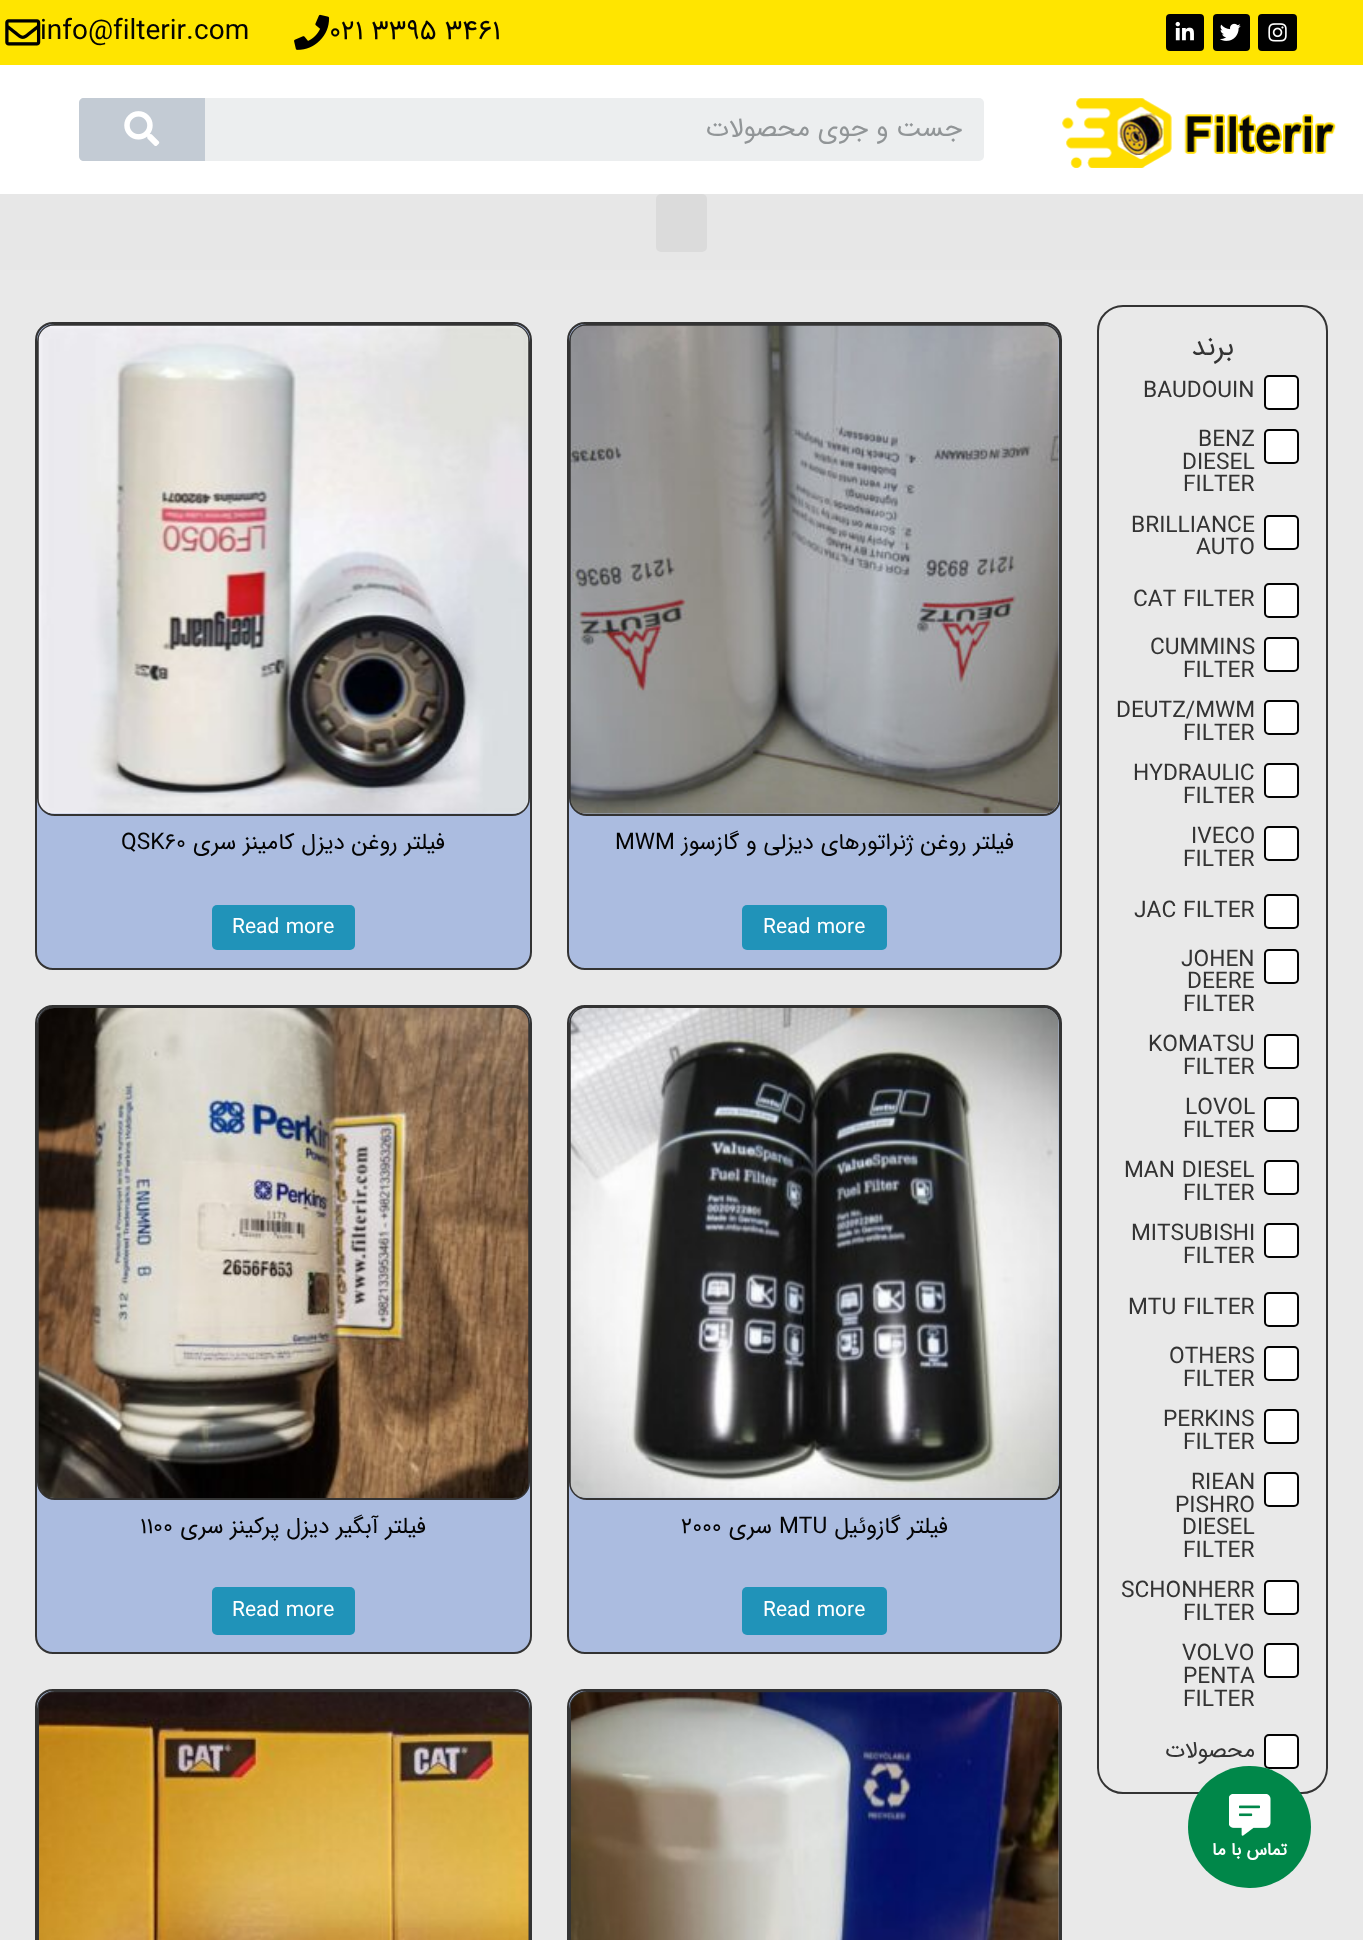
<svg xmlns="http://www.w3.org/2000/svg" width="1363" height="1940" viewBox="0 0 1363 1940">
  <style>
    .t1 { font: 28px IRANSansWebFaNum; fill: #030303; }
    .t2 { font: 26.25px IRANSansWebFaNum; direction: rtl; fill: #919597; }
    .t3 { font: 22.75px IRANSansWebFaNum; fill: #030303; }
    .t4 { font: 22.75px IRANSansWebFaNum; direction: rtl; fill: #030303; }
    .t5 { font: 21px IRANSansWebFaNum; fill: #fff; }
    .t6 { font: 28px IRANSansWebFaNum; direction: rtl; fill: #333; }
    .t7 { font: 22.75px IRANSansWebFaNum; fill: #333; }
    .t8 { font: 22.75px IRANSansWebFaNum; direction: rtl; fill: #333; }
    .t9 { font: bold 17.5px IRANSansWebFaNum; direction: rtl; fill: #fff; }
  </style>
  <rect width="100%" height="100%" fill="#fff"/>
  <rect x="0" y="0" width="1363" height="65" fill="#ffe500"/>
  <image x="5" y="19" width="36" height="27" href="images/1.png"/>
  <text x="40" y="39" class="t1">info@filterir.com</text>
  <image x="294" y="14" width="36" height="36" href="images/2.png"/>
  <text x="329" y="39" class="t1">021 3395 3461</text>
  <rect x="1166" y="14" width="38" height="37" rx="4" fill="#000"/>
  <image x="1175" y="21" width="19" height="20" href="images/3.png"/>
  <rect x="1213" y="14" width="37" height="37" rx="4" fill="#000"/>
  <image x="1220" y="23" width="21" height="18" href="images/4.png"/>
  <rect x="1258" y="14" width="39" height="37" rx="4" fill="#000"/>
  <image x="1268" y="23" width="19" height="19" href="images/5.png"/>
  <rect x="79" y="98" width="905" height="63" rx="5" fill="#eceeef"/>
  <path d="M84 98H205V161H84C81 161 79 159 79 156V103C79 100 81 98 84 98Z" fill="#c3cbd4"/>
  <image x="124" y="111" width="36" height="35" href="images/6.png"/>
  <text x="962" y="136" class="t2">جست و جوی محصولات</text>
  <image x="1062" y="98" width="274" height="70" href="images/7.png"/>
  <rect x="0" y="194" width="1363" height="76" fill="#e7e7e7"/>
  <rect x="656" y="194" width="51" height="58" rx="5" fill="#dbdbdb"/>
  <rect x="0" y="270" width="1363" height="1670" fill="#e9e9e9"/>
  <rect x="36" y="323" width="495" height="646" rx="17" fill="#abbce0" stroke="#333" stroke-width="2"/>
  <rect x="38" y="325" width="491" height="490" rx="17" fill="none" stroke="#333" stroke-width="2"/>
  <image x="38" y="325" width="491" height="489" href="images/8.png"/>
  <text x="121" y="849" class="t3">QSK60</text>
  <text x="445" y="849" class="t4">فیلتر روغن دیزل کامینز سری</text>
  <rect x="212" y="905" width="143" height="45" rx="5" fill="#2093b9"/>
  <text x="232" y="933" class="t5">Read more</text>
  <rect x="568" y="323" width="493" height="646" rx="17" fill="#abbce0" stroke="#333" stroke-width="2"/>
  <rect x="570" y="325" width="490" height="490" rx="17" fill="none" stroke="#333" stroke-width="2"/>
  <image x="570" y="325" width="489" height="489" href="images/9.png"/>
  <text x="615" y="849" class="t3">MWM</text>
  <text x="1014" y="849" class="t4">فیلتر روغن ژنراتورهای دیزلی و گازسوز</text>
  <rect x="742" y="905" width="145" height="45" rx="5" fill="#2093b9"/>
  <text x="763" y="933" class="t5">Read more</text>
  <rect x="36" y="1006" width="495" height="647" rx="17" fill="#abbce0" stroke="#333" stroke-width="2"/>
  <rect x="38" y="1007" width="491" height="492" rx="17" fill="none" stroke="#333" stroke-width="2"/>
  <image x="38" y="1008" width="491" height="490" href="images/10.png"/>
  <text x="140" y="1533" class="t3">1100</text>
  <text x="426" y="1533" class="t4">فیلتر آبگیر دیزل پرکینز سری</text>
  <rect x="212" y="1587" width="143" height="48" rx="5" fill="#2093b9"/>
  <text x="232" y="1616" class="t5">Read more</text>
  <rect x="568" y="1006" width="493" height="647" rx="17" fill="#abbce0" stroke="#333" stroke-width="2"/>
  <rect x="570" y="1007" width="490" height="492" rx="17" fill="none" stroke="#333" stroke-width="2"/>
  <image x="570" y="1008" width="489" height="490" href="images/11.png"/>
  <text x="681" y="1533" class="t3">2000</text>
  <text x="772" y="1533" class="t4">سری</text>
  <text x="779" y="1533" class="t3">MTU</text>
  <text x="948" y="1533" class="t4">فیلتر گازوئیل</text>
  <rect x="742" y="1587" width="145" height="48" rx="5" fill="#2093b9"/>
  <text x="763" y="1616" class="t5">Read more</text>
  <rect x="36" y="1690" width="495" height="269" rx="17" fill="#abbce0" stroke="#333" stroke-width="2"/>
  <rect x="38" y="1692" width="491" height="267" rx="17" fill="none" stroke="#333" stroke-width="2"/>
  <image x="39" y="1692" width="490" height="248" href="images/12.png"/>
  <rect x="568" y="1690" width="493" height="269" rx="17" fill="#abbce0" stroke="#333" stroke-width="2"/>
  <rect x="570" y="1692" width="490" height="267" rx="17" fill="none" stroke="#333" stroke-width="2"/>
  <image x="571" y="1692" width="488" height="248" href="images/13.png"/>
  <rect x="1098" y="306" width="229" height="1487" rx="25" fill="none" stroke="#333" stroke-width="2"/>
  <text x="1234" y="355" class="t6">برند</text>
  <text x="1143" y="397" class="t7">BAUDOUIN</text>
  <rect x="1265" y="376" width="33" height="33" rx="4" fill="#fff" stroke="#030303" stroke-width="2"/>
  <text x="1198" y="446" class="t7">BENZ</text>
  <text x="1182" y="469" class="t7">DIESEL</text>
  <text x="1183" y="491" class="t7">FILTER</text>
  <rect x="1265" y="430" width="33" height="33" rx="4" fill="#fff" stroke="#030303" stroke-width="2"/>
  <text x="1131" y="532" class="t7">BRILLIANCE</text>
  <text x="1196" y="554" class="t7">AUTO</text>
  <rect x="1265" y="516" width="33" height="33" rx="4" fill="#fff" stroke="#030303" stroke-width="2"/>
  <text x="1133" y="606" class="t7">CAT FILTER</text>
  <rect x="1265" y="584" width="33" height="33" rx="4" fill="#fff" stroke="#030303" stroke-width="2"/>
  <text x="1150" y="654" class="t7">CUMMINS</text>
  <text x="1183" y="677" class="t7">FILTER</text>
  <rect x="1265" y="638" width="33" height="33" rx="4" fill="#fff" stroke="#030303" stroke-width="2"/>
  <text x="1116" y="717" class="t7">DEUTZ/MWM</text>
  <text x="1183" y="740" class="t7">FILTER</text>
  <rect x="1265" y="701" width="33" height="33" rx="4" fill="#fff" stroke="#030303" stroke-width="2"/>
  <text x="1133" y="780" class="t7">HYDRAULIC</text>
  <text x="1183" y="803" class="t7">FILTER</text>
  <rect x="1265" y="764" width="33" height="33" rx="4" fill="#fff" stroke="#030303" stroke-width="2"/>
  <text x="1191" y="843" class="t7">IVECO</text>
  <text x="1183" y="866" class="t7">FILTER</text>
  <rect x="1265" y="827" width="33" height="33" rx="4" fill="#fff" stroke="#030303" stroke-width="2"/>
  <text x="1134" y="917" class="t7">JAC FILTER</text>
  <rect x="1265" y="895" width="33" height="33" rx="4" fill="#fff" stroke="#030303" stroke-width="2"/>
  <text x="1181" y="966" class="t7">JOHEN</text>
  <text x="1187" y="988" class="t7">DEERE</text>
  <text x="1183" y="1011" class="t7">FILTER</text>
  <rect x="1265" y="950" width="33" height="33" rx="4" fill="#fff" stroke="#030303" stroke-width="2"/>
  <text x="1148" y="1051" class="t7">KOMATSU</text>
  <text x="1183" y="1074" class="t7">FILTER</text>
  <rect x="1265" y="1035" width="33" height="33" rx="4" fill="#fff" stroke="#030303" stroke-width="2"/>
  <text x="1185" y="1114" class="t7">LOVOL</text>
  <text x="1183" y="1137" class="t7">FILTER</text>
  <rect x="1265" y="1098" width="33" height="33" rx="4" fill="#fff" stroke="#030303" stroke-width="2"/>
  <text x="1124" y="1177" class="t7">MAN DIESEL</text>
  <text x="1183" y="1200" class="t7">FILTER</text>
  <rect x="1265" y="1161" width="33" height="33" rx="4" fill="#fff" stroke="#030303" stroke-width="2"/>
  <text x="1131" y="1240" class="t7">MITSUBISHI</text>
  <text x="1183" y="1263" class="t7">FILTER</text>
  <rect x="1265" y="1224" width="33" height="33" rx="4" fill="#fff" stroke="#030303" stroke-width="2"/>
  <text x="1128" y="1314" class="t7">MTU FILTER</text>
  <rect x="1265" y="1293" width="33" height="33" rx="4" fill="#fff" stroke="#030303" stroke-width="2"/>
  <text x="1169" y="1363" class="t7">OTHERS</text>
  <text x="1183" y="1386" class="t7">FILTER</text>
  <rect x="1265" y="1347" width="33" height="33" rx="4" fill="#fff" stroke="#030303" stroke-width="2"/>
  <text x="1163" y="1426" class="t7">PERKINS</text>
  <text x="1183" y="1449" class="t7">FILTER</text>
  <rect x="1265" y="1410" width="33" height="33" rx="4" fill="#fff" stroke="#030303" stroke-width="2"/>
  <text x="1191" y="1489" class="t7">RIEAN</text>
  <text x="1175" y="1512" class="t7">PISHRO</text>
  <text x="1182" y="1534" class="t7">DIESEL</text>
  <text x="1183" y="1557" class="t7">FILTER</text>
  <rect x="1265" y="1473" width="33" height="33" rx="4" fill="#fff" stroke="#030303" stroke-width="2"/>
  <text x="1121" y="1597" class="t7">SCHONHERR</text>
  <text x="1183" y="1620" class="t7">FILTER</text>
  <rect x="1265" y="1581" width="33" height="33" rx="4" fill="#fff" stroke="#030303" stroke-width="2"/>
  <text x="1182" y="1660" class="t7">VOLVO</text>
  <text x="1183" y="1683" class="t7">PENTA</text>
  <text x="1183" y="1706" class="t7">FILTER</text>
  <rect x="1265" y="1644" width="33" height="33" rx="4" fill="#fff" stroke="#030303" stroke-width="2"/>
  <text x="1255" y="1757" class="t8">محصولات</text>
  <rect x="1265" y="1735" width="33" height="33" rx="4" fill="#fff" stroke="#030303" stroke-width="2"/>
  <rect x="1188" y="1766" width="123" height="122" rx="61" fill="#008749"/>
  <image x="1229" y="1794" width="42" height="42" href="images/14.png"/>
  <text x="1287" y="1855" class="t9">تماس با ما</text>
</svg>
